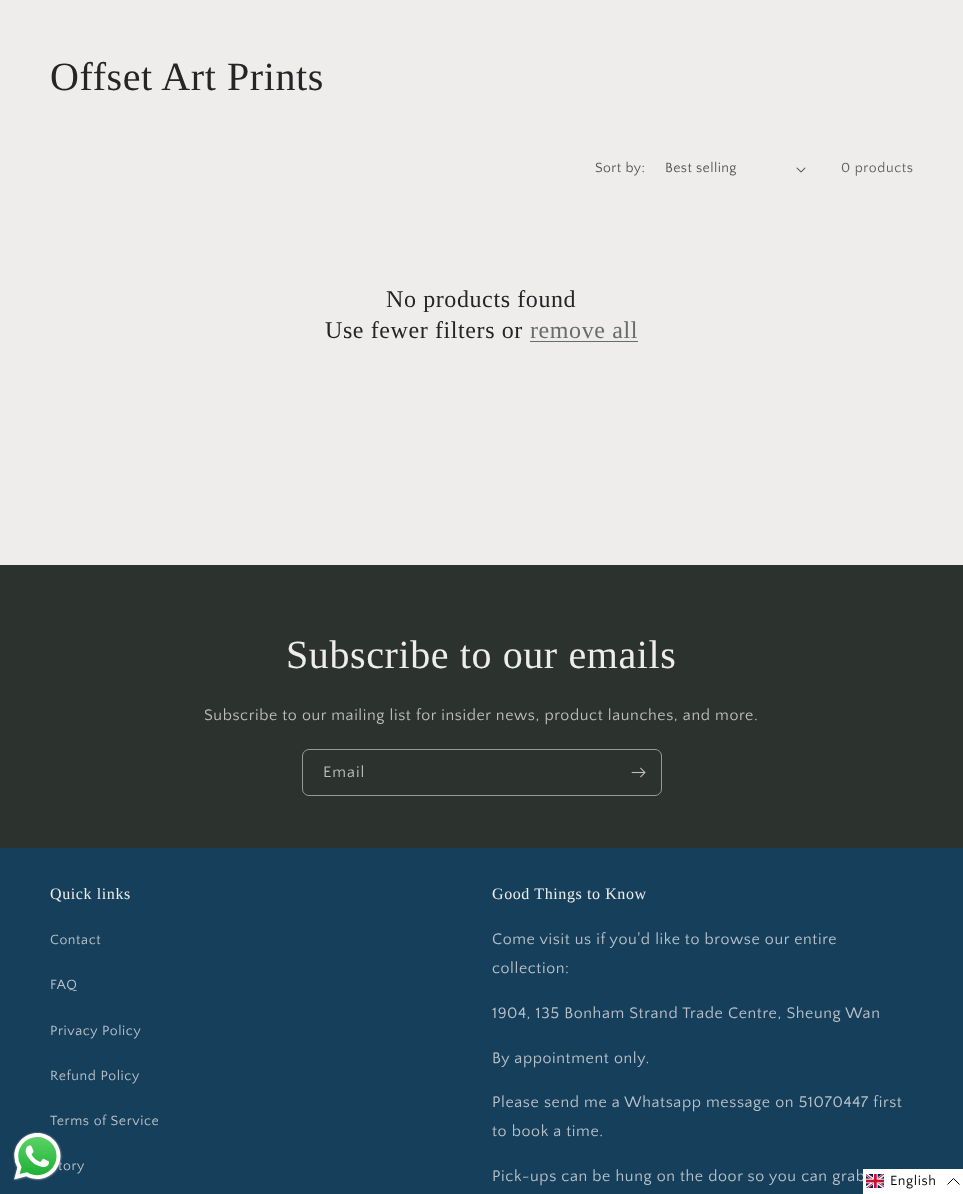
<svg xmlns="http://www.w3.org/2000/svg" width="963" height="1194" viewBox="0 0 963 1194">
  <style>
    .t1 { font: 40px Liberation Serif; letter-spacing: 0.6px; fill: #252525; }
    .t2 { font: 14px Quattrocento Sans; letter-spacing: 0.4px; fill: #585757; }
    .t3 { font: 14px Quattrocento Sans; letter-spacing: 0.6px; fill: #626161; }
    .t4 { font: 24px Liberation Serif; letter-spacing: 0.6px; fill: #252525; }
    .t5 { font: 24px Liberation Serif; letter-spacing: 0.6px; fill: #686d6c; }
    .t6 { font: 40px Liberation Serif; letter-spacing: 0.6px; fill: #efecec; }
    .t7 { font: 16px Quattrocento Sans; letter-spacing: 0.6px; fill: #bebebd; }
    .t8 { font: 16px Quattrocento Sans; letter-spacing: 1px; fill: #bebebd; }
    .t9 { font: 14px Quattrocento Sans; letter-spacing: 0.6px; fill: #b9c1c8; }
    .t10 { font: 16px Liberation Serif; letter-spacing: 0.6px; fill: #efecec; }
    .t11 { font: 16px Quattrocento Sans; letter-spacing: 0.6px; fill: #b9c1c8; }
    .t12 { font: 14px Quattrocento Sans; letter-spacing: 0.6px; fill: #000; }
  </style>
  <rect width="100%" height="100%" fill="#efecec"/>
  <text x="50" y="90" class="t1">Offset Art Prints</text>
  <text x="595" y="172" class="t2">Sort by:</text>
  <text x="665" y="172" class="t2">Best selling</text>
  <image x="796" y="167" width="10" height="6" href="images/1.png"/>
  <text x="841" y="172" class="t3">0 products</text>
  <text x="386" y="307" class="t4">No products found</text>
  <text x="325" y="338" class="t4">Use fewer filters or</text>
  <text x="530" y="338" class="t5">remove all</text>
  <rect x="530" y="341" width="108" height="1" fill="#686d6c"/>
  <rect x="0" y="565" width="963" height="283" fill="#2c332f"/>
  <text x="286" y="668" class="t6">Subscribe to our emails</text>
  <text x="204" y="720" class="t7">Subscribe to our mailing list for insider news, product launches, and more.</text>
  <rect x="302.5" y="749.5" width="359" height="46" rx="6.5" fill="none" stroke="#979997"/>
  <text x="323" y="777" class="t8">Email</text>
  <image x="631" y="767" width="15" height="11" href="images/2.png"/>
  <rect x="0" y="848" width="963" height="346" fill="#163f5b"/>
  <text x="58" y="1170" class="t9">tory</text>
  <image x="12" y="1131" width="51" height="50" href="images/3.png"/>
  <text x="50" y="899" class="t10">Quick links</text>
  <text x="50" y="944" class="t9">Contact</text>
  <text x="50" y="989" class="t9">FAQ</text>
  <text x="50" y="1035" class="t9">Privacy Policy</text>
  <text x="50" y="1080" class="t9">Refund Policy</text>
  <text x="50" y="1125" class="t9">Terms of Service</text>
  <text x="492" y="899" class="t10">Good Things to Know</text>
  <text x="492" y="944" class="t11">Come visit us if you'd like to browse our entire</text>
  <text x="492" y="973" class="t11">collection:</text>
  <text x="492" y="1018" class="t11">1904, 135 Bonham Strand Trade Centre, Sheung Wan</text>
  <text x="492" y="1063" class="t11">By appointment only.</text>
  <text x="492" y="1107" class="t11">Please send me a Whatsapp message on 51070447 first</text>
  <text x="492" y="1136" class="t11">to book a time.</text>
  <text x="492" y="1181" class="t11">Pick-ups can be hung on the door so you can grab</text>
  <rect x="863" y="1169" width="100" height="25" fill="#fff"/>
  <image x="866" y="1174" width="18" height="14" href="images/4.png"/>
  <text x="890" y="1185" class="t12">English</text>
  <path d="M959.5 1184.5L953.5 1178.5L947.5 1184.5" fill="none" stroke="#000"/>
</svg>
